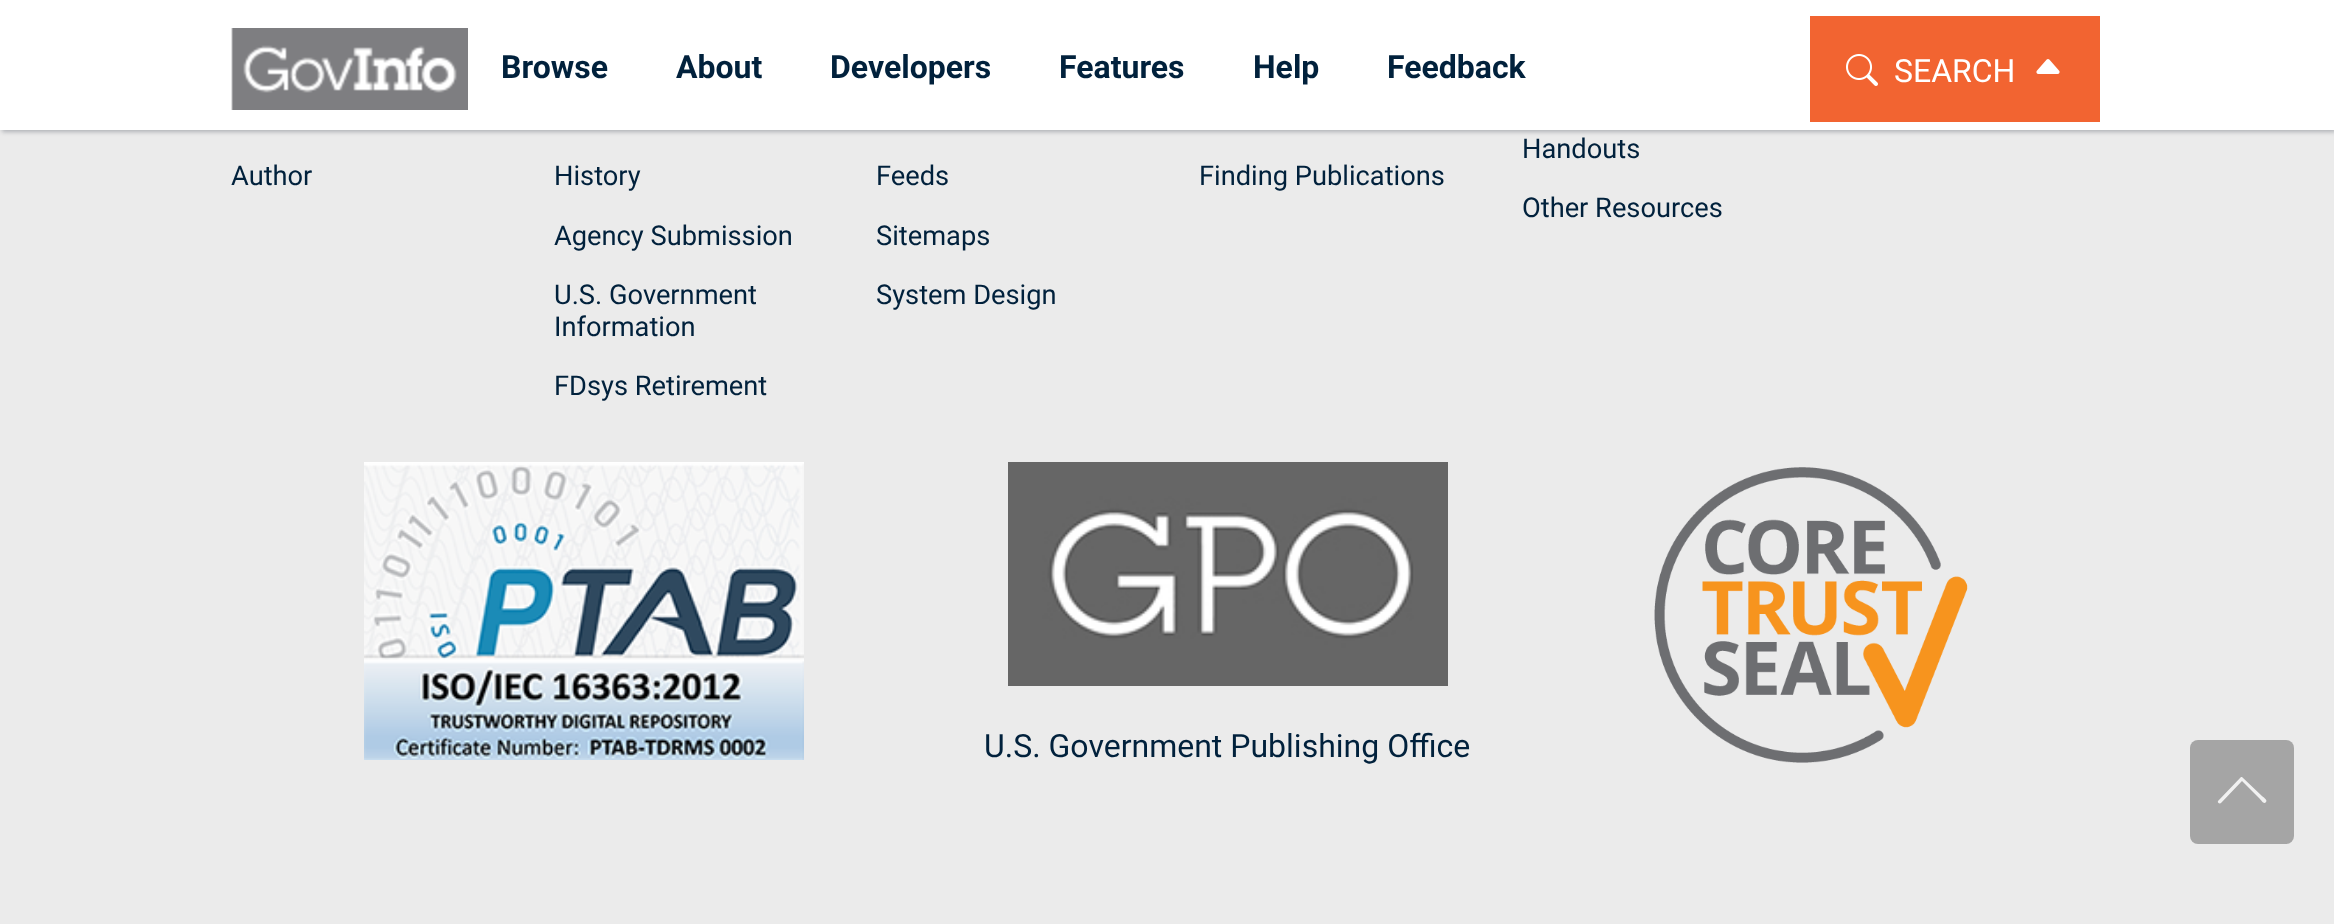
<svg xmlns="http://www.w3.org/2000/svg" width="2334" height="924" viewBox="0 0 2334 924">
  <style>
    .t1 { font: bold 32px Roboto; fill: #01213c; }
    .t2 { font: 32px Roboto; fill: #fff; }
    .t3 { font: 27.25px Roboto; fill: #01213c; }
    .t4 { font: 32px Roboto; fill: #01213c; }
  </style>
  <rect width="100%" height="100%" fill="#ebebeb"/>
  <rect x="2" y="2" width="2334" height="130" fill="#afb1b6" filter="blur(2px)"/>
  <rect x="0" y="0" width="2334" height="130" fill="#fff"/>
  <image x="231" y="28" width="237" height="82" href="images/1.png"/>
  <text x="501" y="78" class="t1">Browse</text>
  <text x="676" y="78" class="t1">About</text>
  <text x="830" y="78" class="t1">Developers</text>
  <text x="1059" y="78" class="t1">Features</text>
  <text x="1253" y="78" class="t1">Help</text>
  <text x="1387" y="78" class="t1">Feedback</text>
  <rect x="1810" y="16" width="290" height="106" fill="#f26431"/>
  <image x="1846" y="54" width="32" height="32" href="images/2.png"/>
  <text x="1894" y="82" class="t2">SEARCH</text>
  <image x="2036" y="59" width="24" height="15" href="images/3.png"/>
  <text x="231" y="185" class="t3">Author</text>
  <text x="554" y="185" class="t3">History</text>
  <text x="554" y="245" class="t3">Agency Submission</text>
  <text x="554" y="304" class="t3">U.S. Government</text>
  <text x="554" y="336" class="t3">Information</text>
  <text x="554" y="395" class="t3">FDsys Retirement</text>
  <text x="876" y="185" class="t3">Feeds</text>
  <text x="876" y="245" class="t3">Sitemaps</text>
  <text x="876" y="304" class="t3">System Design</text>
  <text x="1199" y="185" class="t3">Finding Publications</text>
  <text x="1522" y="158" class="t3">Handouts</text>
  <text x="1522" y="217" class="t3">Other Resources</text>
  <image x="364" y="462" width="440" height="298" href="images/4.png"/>
  <image x="1008" y="462" width="440" height="224" href="images/5.png"/>
  <text x="984" y="757" class="t4">U.S. Government Publishing Office</text>
  <image x="1654" y="467" width="314" height="296" href="images/6.png"/>
  <rect x="2190" y="740" width="104" height="104" rx="8" fill="#a5a5a5"/>
  <path d="M2241 777H2242L2262 796C2263 797 2268 800 2266 802C2264 805 2261 800 2260 799L2242 781L2221 803C2220 804 2217 803 2218 801Z" fill="#f1f1f1"/>
</svg>
